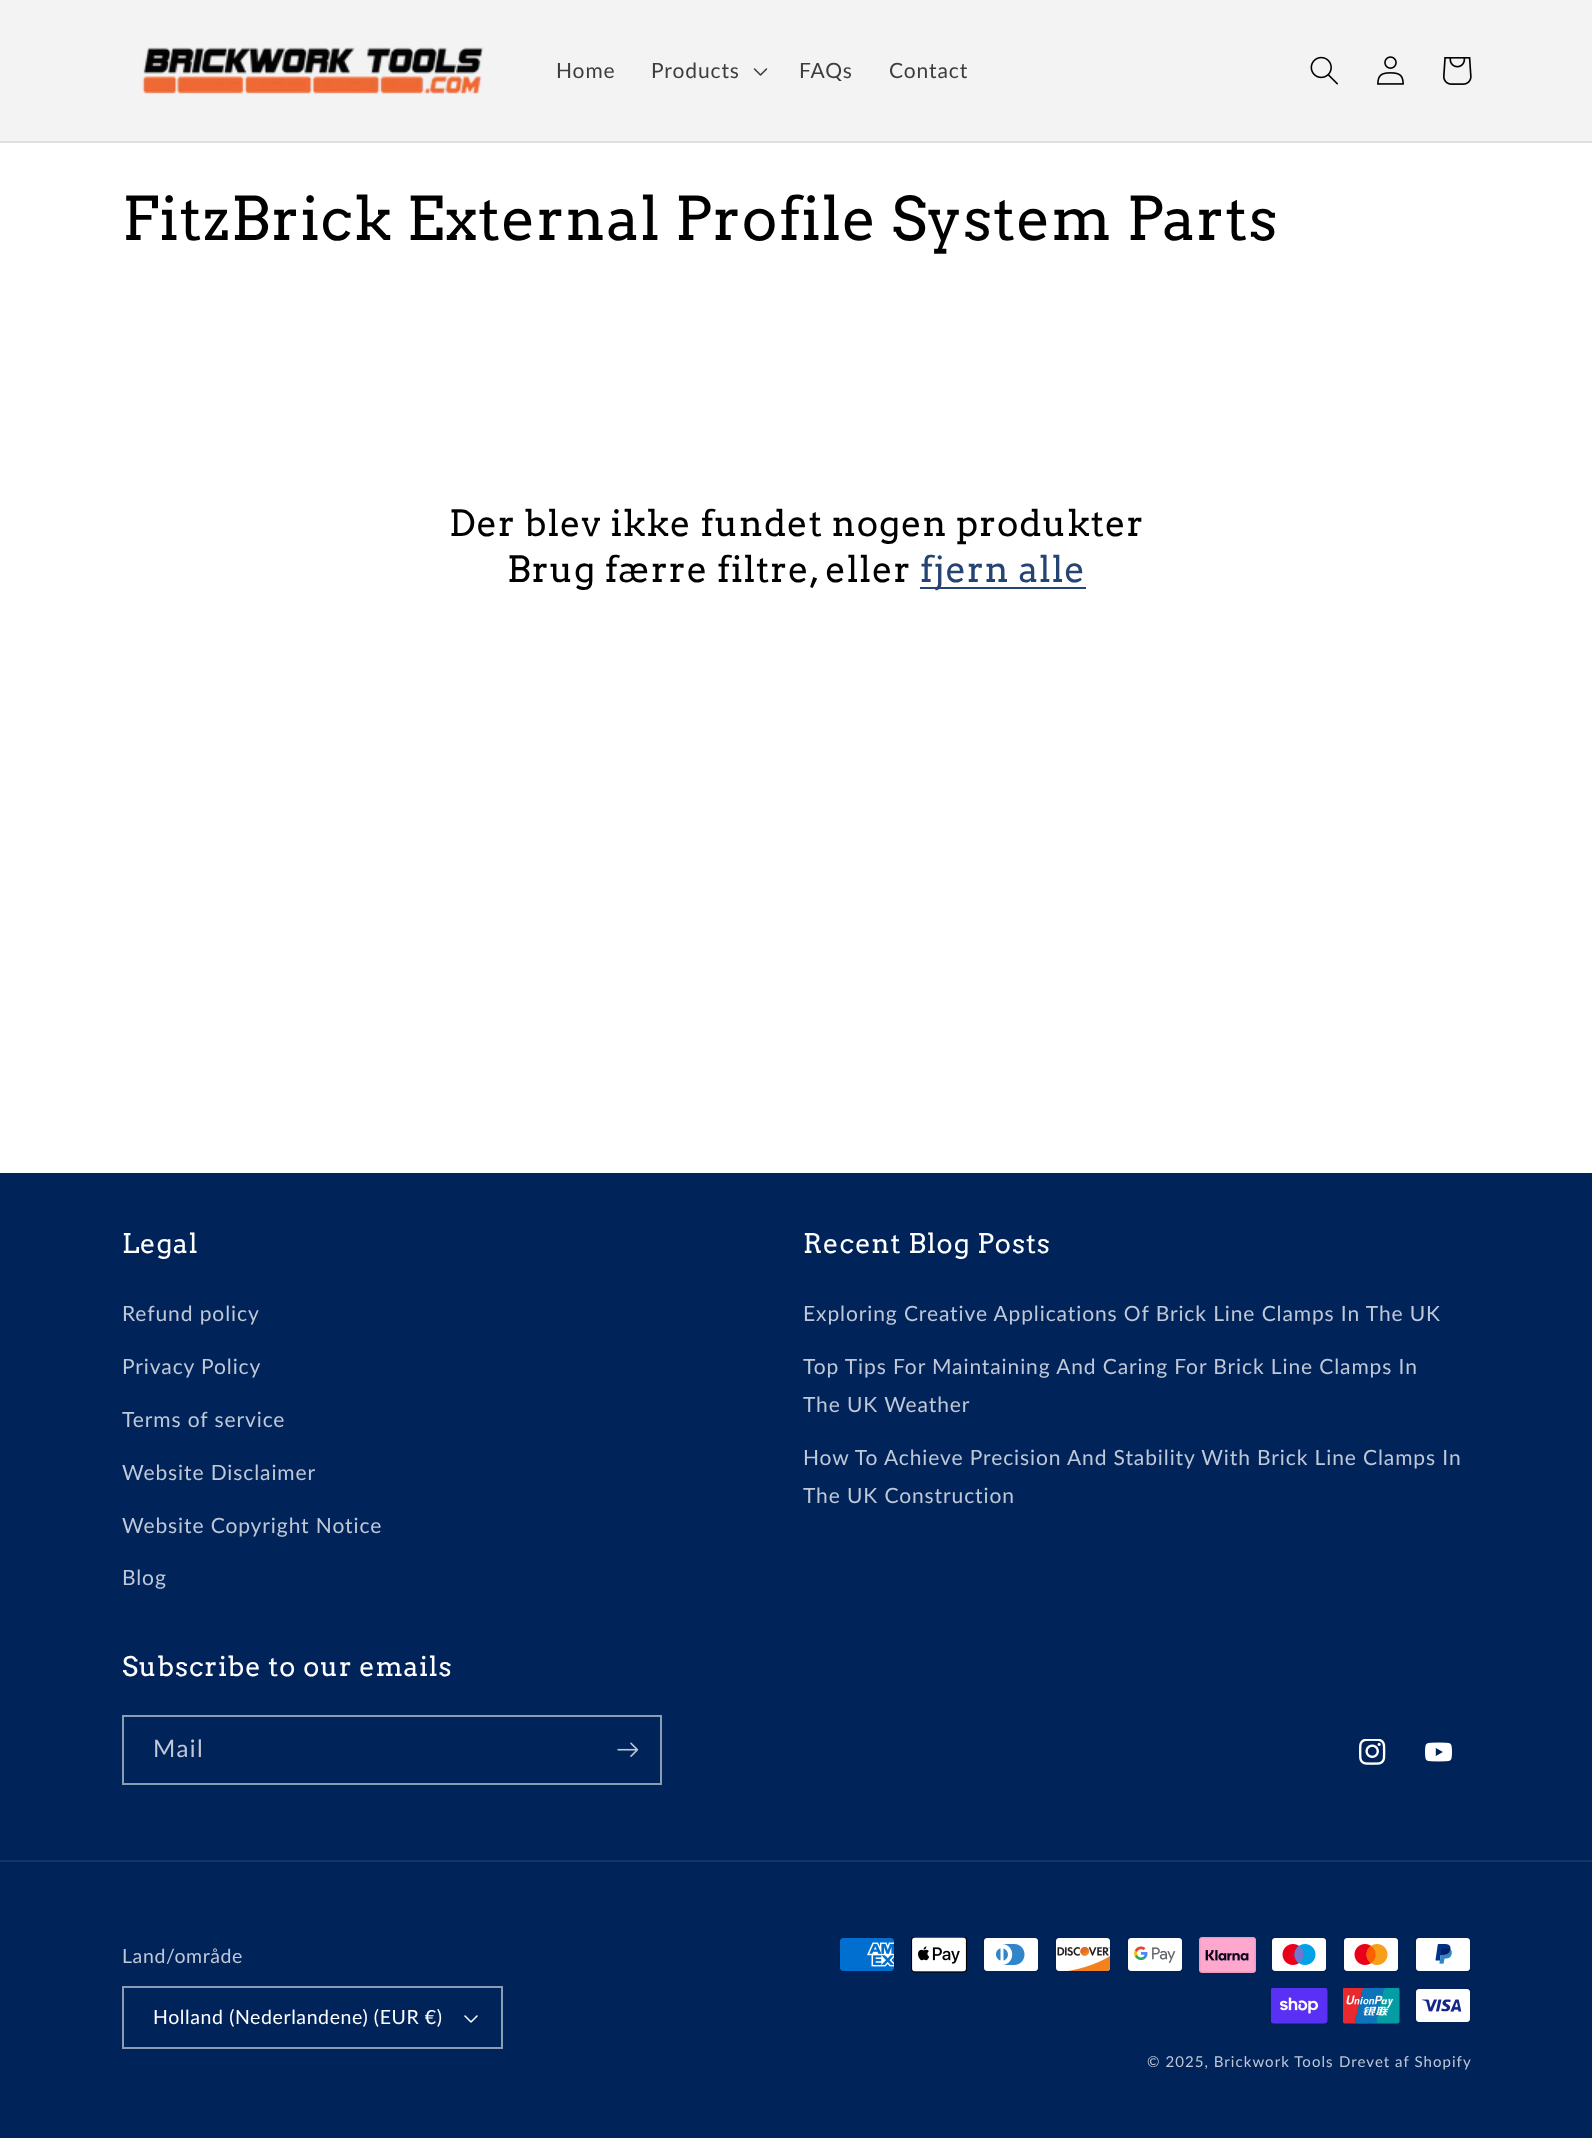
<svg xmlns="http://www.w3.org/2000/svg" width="1592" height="2138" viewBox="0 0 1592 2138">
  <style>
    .t1 { font: 21px Lato; letter-spacing: 0.9px; fill: #3d3d3d; }
    .t2 { font: 60px Arvo; letter-spacing: 0.9px; fill: #000; }
    .t3 { font: 36px Arvo; letter-spacing: 0.9px; fill: #000; }
    .t4 { font: 36px Arvo; letter-spacing: 0.9px; fill: #264473; }
    .t5 { font: 27px Arvo; letter-spacing: 0.9px; fill: #fff; }
    .t6 { font: 21px Lato; letter-spacing: 0.9px; fill: #bfc8d6; }
    .t7 { font: 24px Lato; letter-spacing: 1.5px; fill: #bfc8d6; }
    .t8 { font: 19.5px Lato; letter-spacing: 0.6px; fill: #bfc8d6; }
    .t9 { font: 19.5px Lato; letter-spacing: 0.6px; fill: #fff; }
    .t10 { font: 15px Lato; letter-spacing: 1.05px; fill: #bfc8d6; }
  </style>
  <rect width="100%" height="100%" fill="#fff"/>
  <rect x="0" y="0" width="1592" height="141" fill="#f3f3f3"/>
  <rect x="0" y="141" width="1592" height="2" fill="#e0e0e0"/>
  <image x="142" y="47" width="342" height="47" href="images/1.png"/>
  <text x="556" y="78" class="t1">Home</text>
  <text x="651" y="78" class="t1">Products</text>
  <image x="753" y="68" width="15" height="8" href="images/2.png"/>
  <text x="799" y="78" class="t1">FAQs</text>
  <text x="889" y="78" class="t1">Contact</text>
  <image x="1310" y="56" width="28" height="29" href="images/3.png"/>
  <image x="1377" y="56" width="27" height="29" href="images/4.png"/>
  <image x="1443" y="57" width="29" height="28" href="images/5.png"/>
  <text x="122" y="240" class="t2">FitzBrick External Profile System Parts</text>
  <text x="449" y="536" class="t3">Der blev ikke fundet nogen produkter</text>
  <text x="507" y="582" class="t3">Brug færre filtre, eller</text>
  <rect x="920" y="587" width="166" height="2" fill="#264473"/>
  <text x="920" y="582" class="t4">fjern alle</text>
  <rect x="0" y="1173" width="1592" height="965" fill="#00235a"/>
  <text x="122" y="1253" class="t5">Legal</text>
  <text x="122" y="1321" class="t6">Refund policy</text>
  <text x="122" y="1374" class="t6">Privacy Policy</text>
  <text x="122" y="1427" class="t6">Terms of service</text>
  <text x="122" y="1480" class="t6">Website Disclaimer</text>
  <text x="122" y="1533" class="t6">Website Copyright Notice</text>
  <text x="122" y="1585" class="t6">Blog</text>
  <text x="803" y="1253" class="t5">Recent Blog Posts</text>
  <text x="803" y="1321" class="t6">Exploring Creative Applications Of Brick Line Clamps In The UK</text>
  <text x="803" y="1374" class="t6">Top Tips For Maintaining And Caring For Brick Line Clamps In</text>
  <text x="803" y="1412" class="t6">The UK Weather</text>
  <text x="803" y="1465" class="t6">How To Achieve Precision And Stability With Brick Line Clamps In</text>
  <text x="803" y="1503" class="t6">The UK Construction</text>
  <text x="122" y="1676" class="t5">Subscribe to our emails</text>
  <rect x="123" y="1716" width="538" height="68" fill="none" stroke="#8c9cb5" stroke-width="2"/>
  <text x="153" y="1757" class="t7">Mail</text>
  <image x="617" y="1742" width="22" height="15" href="images/6.png"/>
  <image x="1359" y="1739" width="27" height="26" href="images/7.png"/>
  <image x="1425" y="1742" width="27" height="20" href="images/8.png"/>
  <rect x="0" y="1860" width="1592" height="2" fill="#143567"/>
  <text x="122" y="1963" class="t8">Land/område</text>
  <image x="464" y="2015" width="14" height="8" href="images/9.png"/>
  <rect x="123" y="1987" width="379" height="61" fill="none" stroke="#8c9cb5" stroke-width="2"/>
  <text x="153" y="2024" class="t9">Holland (Nederlandene) (EUR €)</text>
  <image x="839" y="1937" width="56" height="35" href="images/10.png"/>
  <image x="911" y="1937" width="57" height="36" href="images/11.png"/>
  <image x="983" y="1937" width="56" height="35" href="images/12.png"/>
  <image x="1055" y="1937" width="56" height="35" href="images/13.png"/>
  <image x="1127" y="1937" width="56" height="35" href="images/14.png"/>
  <image x="1199" y="1937" width="57" height="36" href="images/15.png"/>
  <image x="1271" y="1937" width="56" height="35" href="images/16.png"/>
  <image x="1343" y="1937" width="56" height="35" href="images/17.png"/>
  <image x="1415" y="1937" width="56" height="35" href="images/18.png"/>
  <image x="1271" y="1988" width="57" height="36" href="images/19.png"/>
  <image x="1343" y="1988" width="57" height="36" href="images/20.png"/>
  <image x="1415" y="1988" width="56" height="35" href="images/21.png"/>
  <text x="1147" y="2067" class="t10">© 2025, Brickwork Tools</text>
  <text x="1339" y="2067" class="t10">Drevet af Shopify</text>
</svg>
